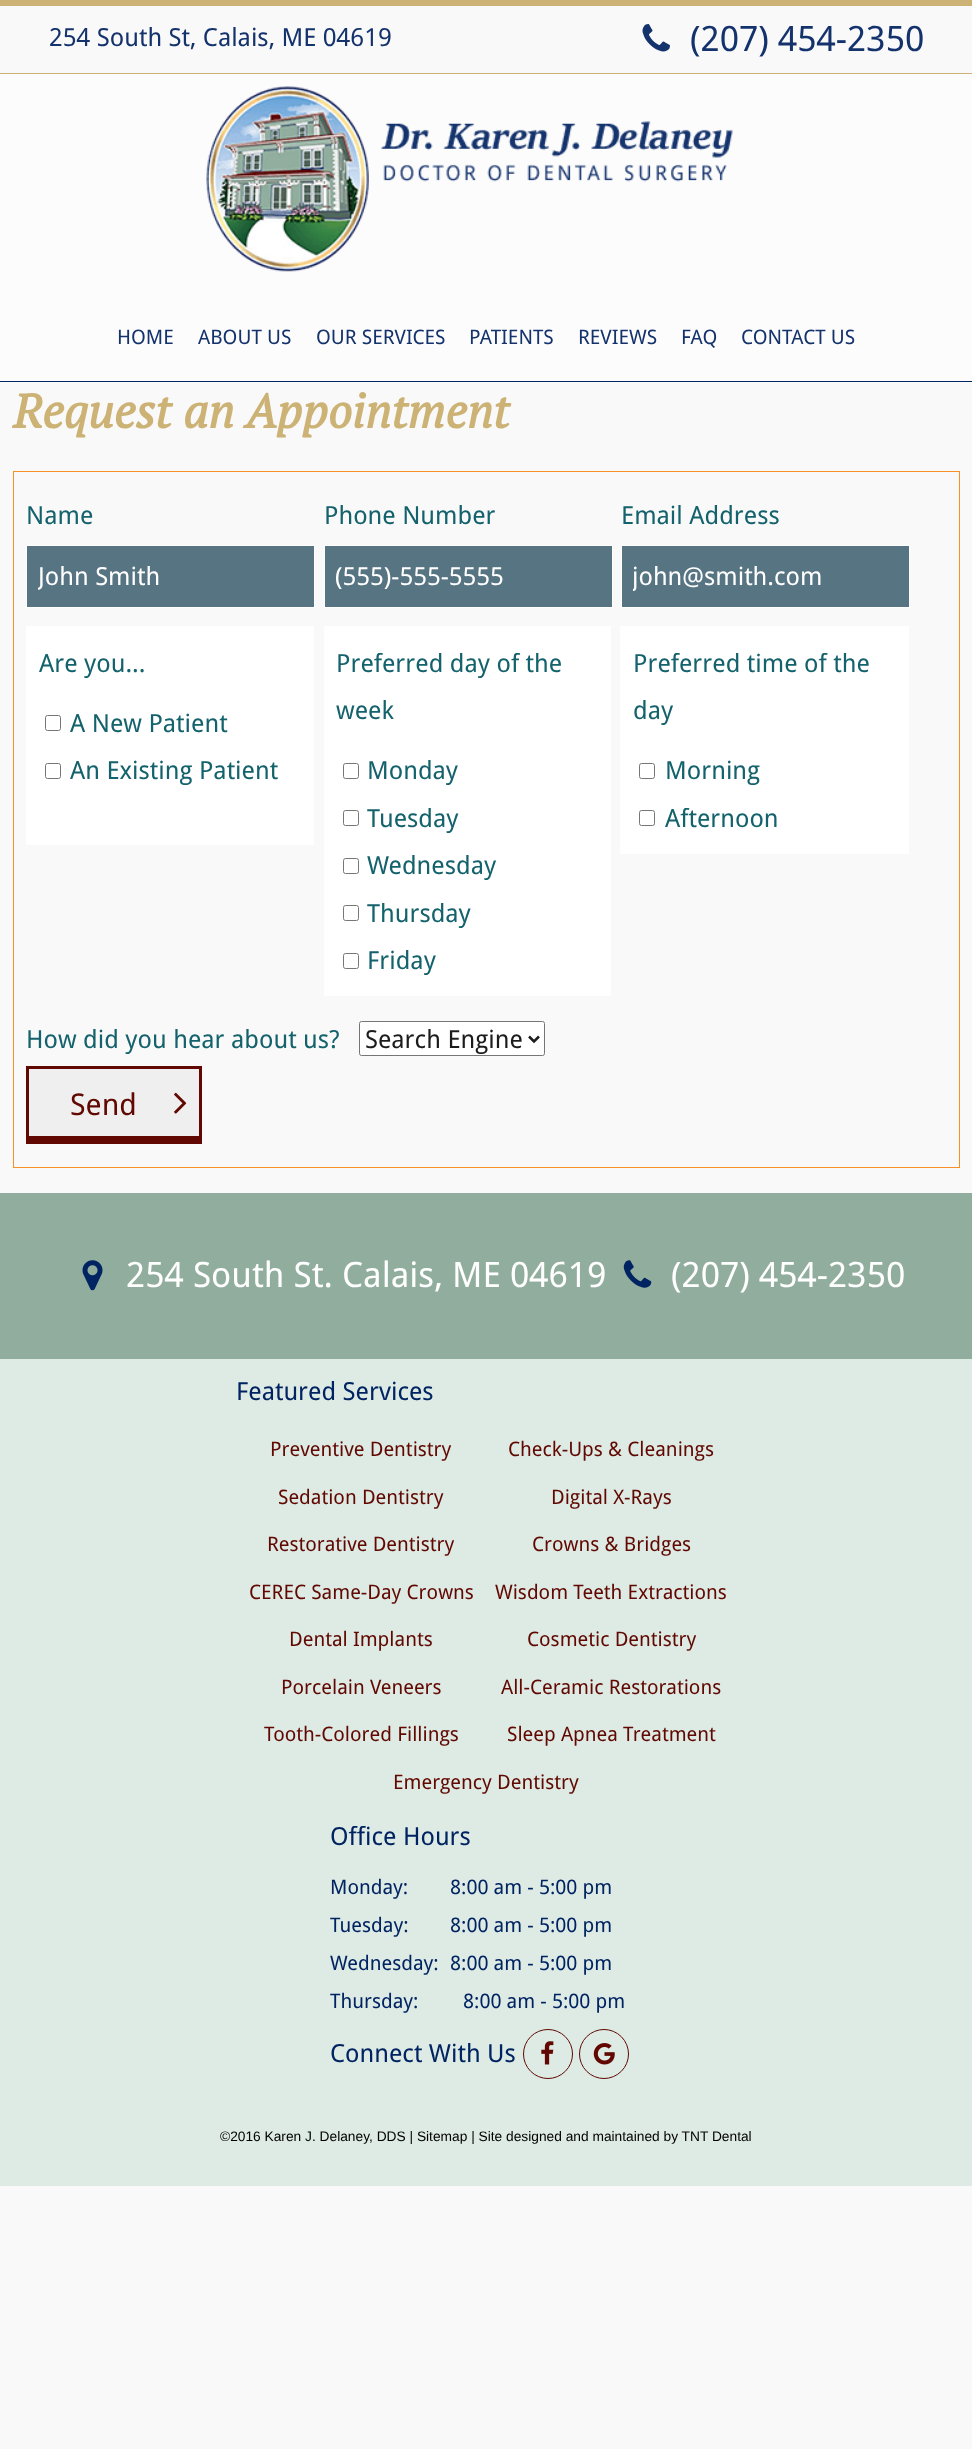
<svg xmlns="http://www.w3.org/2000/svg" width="972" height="2449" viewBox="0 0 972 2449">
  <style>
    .t1 { font: 25px Droid Sans; fill: #14326c; }
    .t2 { font: 35px Droid Sans; fill: #14326c; }
    .t3 { font: 20px Droid Sans; fill: #14326c; }
    .t4 { font: italic bold 47.5px PT Serif; fill: #ccb274; }
    .t5 { font: 25px Droid Sans; fill: #14626c; }
    .t6 { font: 25px Droid Sans; fill: #fff; }
    .t7 { font: 25px Droid Sans; fill: #1c1c1c; }
    .t8 { font: 30px Droid Sans; fill: #600801; }
    .t9 { font: 35px Droid Sans; fill: #fff; }
    .t10 { font: 25px Droid Sans; fill: #002361; }
    .t11 { font: 20px Droid Sans; fill: #600801; }
    .t12 { font: 20px Droid Sans; fill: #002361; }
    .t13 { font: 13.75px Liberation Sans; fill: #000; }
  </style>
  <defs>
    <clipPath id="clip1"><rect x="38" y="561" width="266" height="30"/></clipPath>
    <clipPath id="clip2"><rect x="633" y="561" width="266" height="30"/></clipPath>
  </defs>
  <rect width="100%" height="100%" fill="#f9f9f9"/>
  <rect x="0" y="0" width="972" height="6" fill="#ccb274"/>
  <rect x="0" y="73" width="972" height="1" fill="#ccb274"/>
  <text x="49" y="46" class="t1">254 South St, Calais, ME 04619</text>
  <image x="642" y="24" width="28" height="28" href="images/1.png"/>
  <text x="690" y="51" class="t2">(207) 454-2350</text>
  <rect x="0" y="74" width="972" height="309" fill="#fcfcfc"/>
  <rect x="0" y="381" width="972" height="1" fill="#002361"/>
  <image x="206" y="86" width="527" height="186" href="images/2.png"/>
  <text x="117" y="344" class="t3">HOME</text>
  <text x="198" y="344" class="t3">ABOUT US</text>
  <text x="316" y="344" class="t3">OUR SERVICES</text>
  <text x="469" y="344" class="t3">PATIENTS</text>
  <text x="578" y="344" class="t3">REVIEWS</text>
  <text x="681" y="344" class="t3">FAQ</text>
  <text x="741" y="344" class="t3">CONTACT US</text>
  <text x="13" y="428" class="t4">Request an Appointment</text>
  <rect x="13.5" y="471.5" width="946" height="696" fill="none" stroke="#f79126"/>
  <text x="26" y="524" class="t5">Name</text>
  <rect x="26.5" y="545.5" width="288" height="62" fill="#577482" stroke="#fff"/>
  <g clip-path="url(#clip1)">
    <text x="38" y="585" class="t6">John Smith</text>
  </g>
  <text x="324" y="524" class="t5">Phone Number</text>
  <rect x="324.5" y="545.5" width="288" height="62" fill="#577482" stroke="#fff"/>
  <text x="335" y="585" class="t6">(555)-555-5555</text>
  <text x="621" y="524" class="t5">Email Address</text>
  <rect x="621.5" y="545.5" width="288" height="62" fill="#577482" stroke="#fff"/>
  <g clip-path="url(#clip2)">
    <text x="632" y="585" class="t6">john@smith.com</text>
  </g>
  <rect x="26" y="626" width="288" height="219" fill="#fff"/>
  <text x="39" y="672" class="t5">Are you...</text>
  <rect x="45.5" y="715.5" width="15" height="15" rx="2" fill="none" stroke="#767676"/>
  <text x="70" y="732" class="t5">A New Patient</text>
  <rect x="45.5" y="763.5" width="15" height="15" rx="2" fill="none" stroke="#767676"/>
  <text x="70" y="779" class="t5">An Existing Patient</text>
  <rect x="324" y="626" width="287" height="370" fill="#fff"/>
  <text x="336" y="672" class="t5">Preferred day of the</text>
  <text x="336" y="719" class="t5">week</text>
  <rect x="343.5" y="763.5" width="15" height="15" rx="2" fill="none" stroke="#767676"/>
  <text x="367" y="779" class="t5">Monday</text>
  <rect x="343.5" y="810.5" width="15" height="15" rx="2" fill="none" stroke="#767676"/>
  <text x="367" y="827" class="t5">Tuesday</text>
  <rect x="343.5" y="858.5" width="15" height="15" rx="2" fill="none" stroke="#767676"/>
  <text x="367" y="874" class="t5">Wednesday</text>
  <rect x="343.5" y="905.5" width="15" height="15" rx="2" fill="none" stroke="#767676"/>
  <text x="367" y="922" class="t5">Thursday</text>
  <rect x="343.5" y="953.5" width="15" height="15" rx="2" fill="none" stroke="#767676"/>
  <text x="367" y="969" class="t5">Friday</text>
  <rect x="620" y="626" width="289" height="228" fill="#fff"/>
  <text x="633" y="672" class="t5">Preferred time of the</text>
  <text x="633" y="719" class="t5">day</text>
  <rect x="639.5" y="763.5" width="15" height="15" rx="2" fill="none" stroke="#767676"/>
  <text x="665" y="779" class="t5">Morning</text>
  <rect x="639.5" y="810.5" width="15" height="15" rx="2" fill="none" stroke="#767676"/>
  <text x="665" y="827" class="t5">Afternoon</text>
  <text x="26" y="1048" class="t5">How did you hear about us?</text>
  <rect x="359.5" y="1021.5" width="185" height="34" rx="2" fill="#fff" stroke="#767676"/>
  <path d="M529 1036.5L534 1041.5L539 1036.5" fill="none" stroke="#1c1c1c" stroke-width="2.5"/>
  <text x="365" y="1048" class="t7">Search Engine</text>
  <rect x="29" y="1069" width="170" height="67" fill="#efefef"/>
  <rect x="26" y="1066" width="175" height="3" fill="#600801"/>
  <rect x="199" y="1066" width="3" height="78" fill="#600801"/>
  <rect x="26" y="1136" width="175" height="8" fill="#600801"/>
  <rect x="26" y="1066" width="3" height="78" fill="#600801"/>
  <text x="70" y="1115" class="t8">Send</text>
  <image x="174" y="1092" width="13" height="22" href="images/3.png"/>
  <rect x="0" y="1193" width="972" height="166" fill="#91ad9e"/>
  <image x="82" y="1260" width="21" height="31" href="images/4.png"/>
  <text x="126" y="1287" class="t9">254 South St. Calais, ME 04619</text>
  <image x="623" y="1260" width="29" height="28" href="images/5.png"/>
  <text x="671" y="1287" class="t9">(207) 454-2350</text>
  <rect x="0" y="1359" width="972" height="827" fill="#deeae4"/>
  <text x="236" y="1400" class="t10">Featured Services</text>
  <text x="270" y="1456" class="t11">Preventive Dentistry</text>
  <text x="508" y="1456" class="t11">Check-Ups &amp; Cleanings</text>
  <text x="278" y="1504" class="t11">Sedation Dentistry</text>
  <text x="551" y="1504" class="t11">Digital X-Rays</text>
  <text x="267" y="1551" class="t11">Restorative Dentistry</text>
  <text x="532" y="1551" class="t11">Crowns &amp; Bridges</text>
  <text x="249" y="1599" class="t11">CEREC Same-Day Crowns</text>
  <text x="495" y="1599" class="t11">Wisdom Teeth Extractions</text>
  <text x="289" y="1646" class="t11">Dental Implants</text>
  <text x="527" y="1646" class="t11">Cosmetic Dentistry</text>
  <text x="281" y="1694" class="t11">Porcelain Veneers</text>
  <text x="501" y="1694" class="t11">All-Ceramic Restorations</text>
  <text x="264" y="1741" class="t11">Tooth-Colored Fillings</text>
  <text x="507" y="1741" class="t11">Sleep Apnea Treatment</text>
  <text x="393" y="1789" class="t11">Emergency Dentistry</text>
  <text x="330" y="1845" class="t10">Office Hours</text>
  <text x="330" y="1894" class="t12">Monday:</text>
  <text x="450" y="1894" class="t12">8:00 am - 5:00 pm</text>
  <text x="330" y="1932" class="t12">Tuesday:</text>
  <text x="450" y="1932" class="t12">8:00 am - 5:00 pm</text>
  <text x="330" y="1970" class="t12">Wednesday:</text>
  <text x="450" y="1970" class="t12">8:00 am - 5:00 pm</text>
  <text x="330" y="2008" class="t12">Thursday:</text>
  <text x="463" y="2008" class="t12">8:00 am - 5:00 pm</text>
  <text x="330" y="2062" class="t10">Connect With Us</text>
  <circle cx="548" cy="2054" r="24.5" fill="none" stroke="#600801"/>
  <image x="541" y="2041" width="13" height="24" href="images/6.png"/>
  <circle cx="604" cy="2054" r="24.5" fill="none" stroke="#600801"/>
  <image x="593" y="2043" width="22" height="22" href="images/7.png"/>
  <text x="220" y="2141" class="t13">©2016 Karen J. Delaney, DDS | Sitemap | Site designed and maintained by TNT Dental</text>
</svg>
